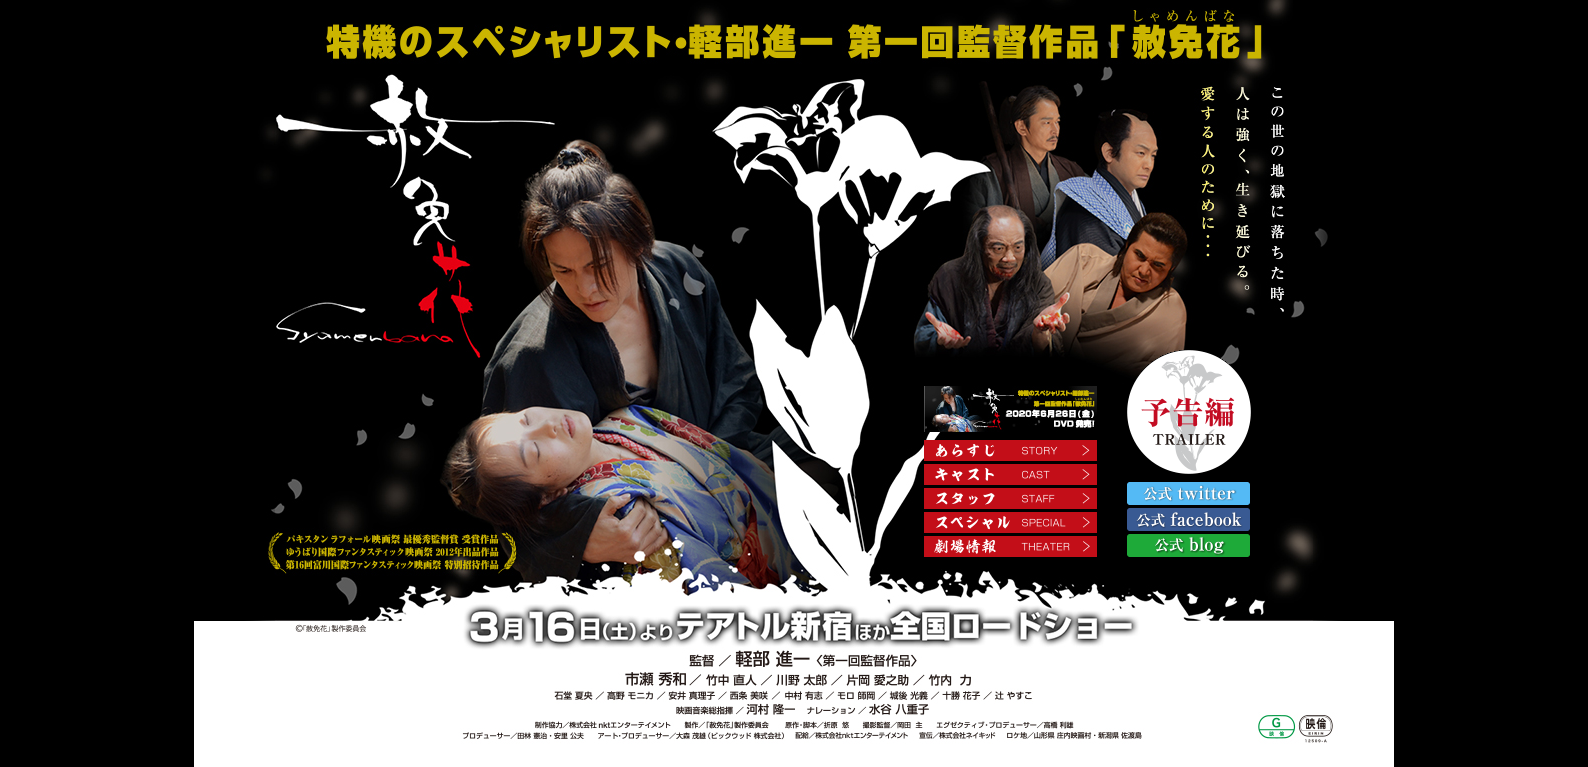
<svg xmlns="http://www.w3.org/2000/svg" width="1588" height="767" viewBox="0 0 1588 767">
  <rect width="100%" height="100%" fill="#000"/>
  <image x="194" y="0" width="1200" height="767" href="images/1.png"/>
  <image x="924" y="386" width="173" height="46" href="images/2.png"/>
  <image x="924" y="440" width="173" height="21" href="images/3.png"/>
  <image x="924" y="464" width="173" height="21" href="images/4.png"/>
  <image x="924" y="488" width="173" height="21" href="images/5.png"/>
  <image x="924" y="512" width="173" height="21" href="images/6.png"/>
  <image x="924" y="536" width="173" height="21" href="images/7.png"/>
  <image x="1127" y="350" width="124" height="124" href="images/8.png"/>
  <image x="1127" y="482" width="123" height="23" href="images/9.png"/>
  <image x="1127" y="508" width="123" height="23" href="images/10.png"/>
  <image x="1127" y="534" width="123" height="23" href="images/11.png"/>
</svg>
